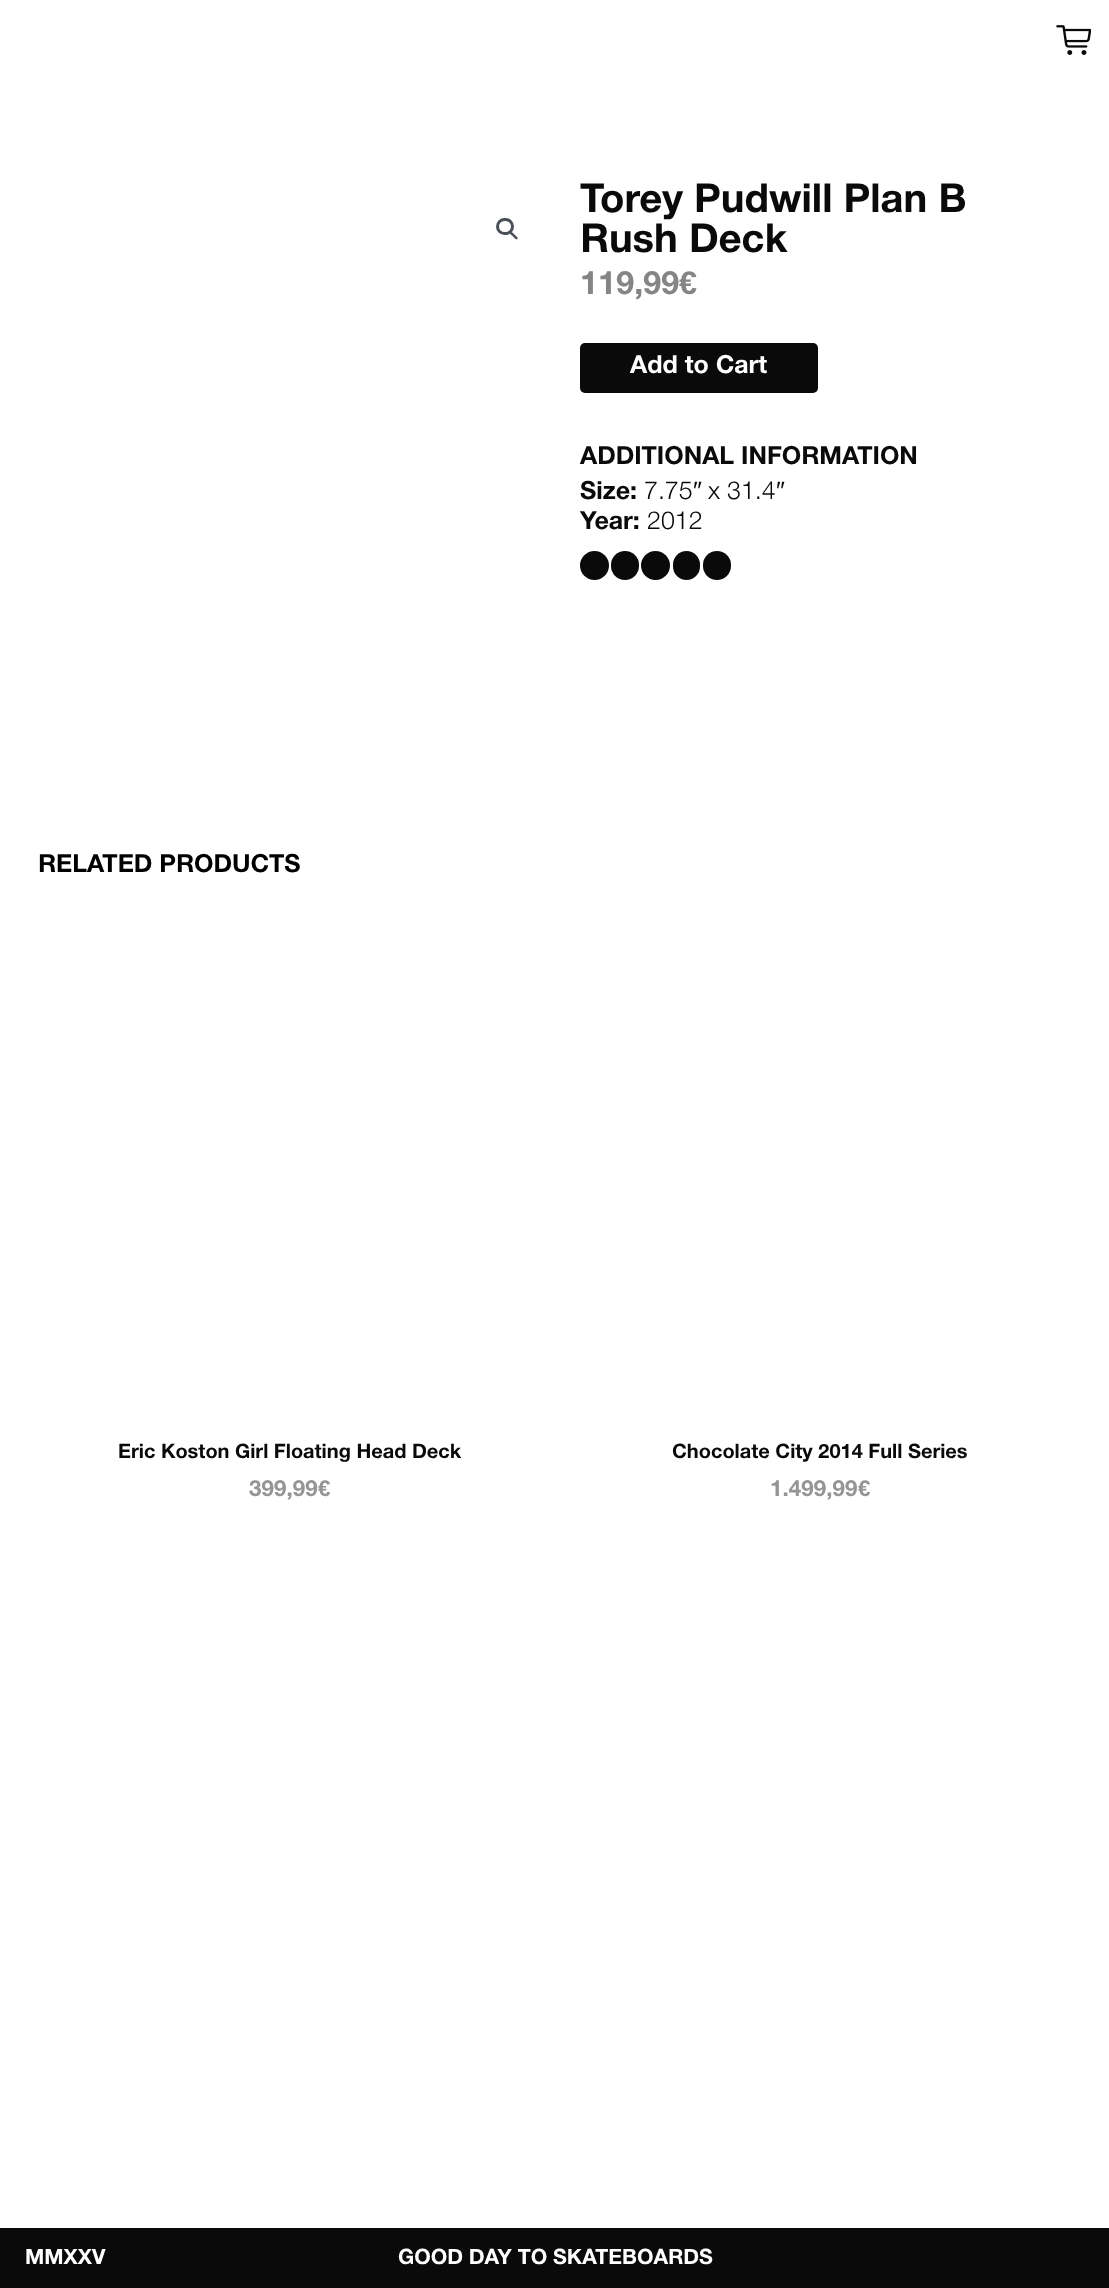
<svg xmlns="http://www.w3.org/2000/svg" width="1109" height="2288" viewBox="0 0 1109 2288">
  <style>
    .t1 { font: bold 40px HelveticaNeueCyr; fill: #0a0a0a; }
    .t2 { font: bold 32.5px HelveticaNeueCyr; fill: #858585; }
    .t3 { font: bold 32.5px Liberation Sans; fill: #858585; }
    .t4 { font: bold 25px HelveticaNeueCyr; fill: #fff; }
    .t5 { font: bold 25px HelveticaNeueCyr; fill: #0a0a0a; }
    .t6 { font: 300 25px HelveticaNeueCyr; fill: #0a0a0a; }
    .t7 { font: 25px Liberation Sans; fill: #0a0a0a; }
    .t8 { font: bold 25px HelveticaNeueCyr; fill: #000; }
    .t9 { font: bold 20px HelveticaNeueCyr; fill: #0a0a0a; }
    .t10 { font: bold 22.5px HelveticaNeueCyr; fill: #959595; }
    .t11 { font: bold 22.5px Liberation Sans; fill: #959595; }
    .t12 { font: bold 21.25px HelveticaNeueCyr; fill: #fff; }
  </style>
  <rect width="100%" height="100%" fill="#fff"/>
  <image x="1056" y="25" width="35" height="30" href="images/1.png"/>
  <rect x="497.5" y="219.5" width="15" height="14" rx="7" fill="none" stroke="#4b4f58" stroke-width="3"/>
  <path d="M510 232C511.5 230.5 514 234 514.5 234.5C515.5 235.5 518.5 237.5 517.5 239C516 240.5 513.5 237 513 236.5C512 235.5 509 233.5 510 232Z" fill="#4b4f58"/>
  <text x="580" y="212" class="t1">Torey Pudwill Plan B</text>
  <text x="580" y="252" class="t1">Rush Deck</text>
  <text x="580" y="294" class="t2">119,99</text>
  <text x="679" y="294" class="t3">€</text>
  <rect x="580" y="343" width="238" height="50" rx="5" fill="#0a0a0a"/>
  <text x="630" y="373" class="t4">Add to Cart</text>
  <text x="580" y="464" class="t5">ADDITIONAL INFORMATION</text>
  <text x="580" y="499" class="t5">Size:</text>
  <text x="644" y="499" class="t6">7.75</text>
  <text x="693" y="499" class="t7">″</text>
  <text x="708" y="499" class="t6">x 31.4</text>
  <text x="776" y="499" class="t7">″</text>
  <text x="580" y="529" class="t5">Year:</text>
  <text x="647" y="529" class="t6">2012</text>
  <circle cx="594.5" cy="565.5" r="14.5" fill="#0a0a0a"/>
  <rect x="611" y="551" width="28" height="29" rx="14" fill="#0a0a0a"/>
  <circle cx="655.5" cy="565.5" r="14.5" fill="#0a0a0a"/>
  <rect x="673" y="551" width="27" height="29" rx="13.5" fill="#0a0a0a"/>
  <rect x="703" y="551" width="28" height="29" rx="14" fill="#0a0a0a"/>
  <text x="38" y="872" class="t8">RELATED PRODUCTS</text>
  <text x="118" y="1458" class="t9">Eric Koston Girl Floating Head Deck</text>
  <text x="249" y="1496" class="t10">399,99</text>
  <text x="318" y="1496" class="t11">€</text>
  <text x="672" y="1458" class="t9">Chocolate City 2014 Full Series</text>
  <text x="770" y="1496" class="t10">1.499,99</text>
  <text x="858" y="1496" class="t11">€</text>
  <rect x="0" y="2228" width="1109" height="60" fill="#0a0a0a"/>
  <text x="25" y="2264" class="t12">MMXXV</text>
  <text x="398" y="2264" class="t12">GOOD DAY TO SKATEBOARDS</text>
</svg>
